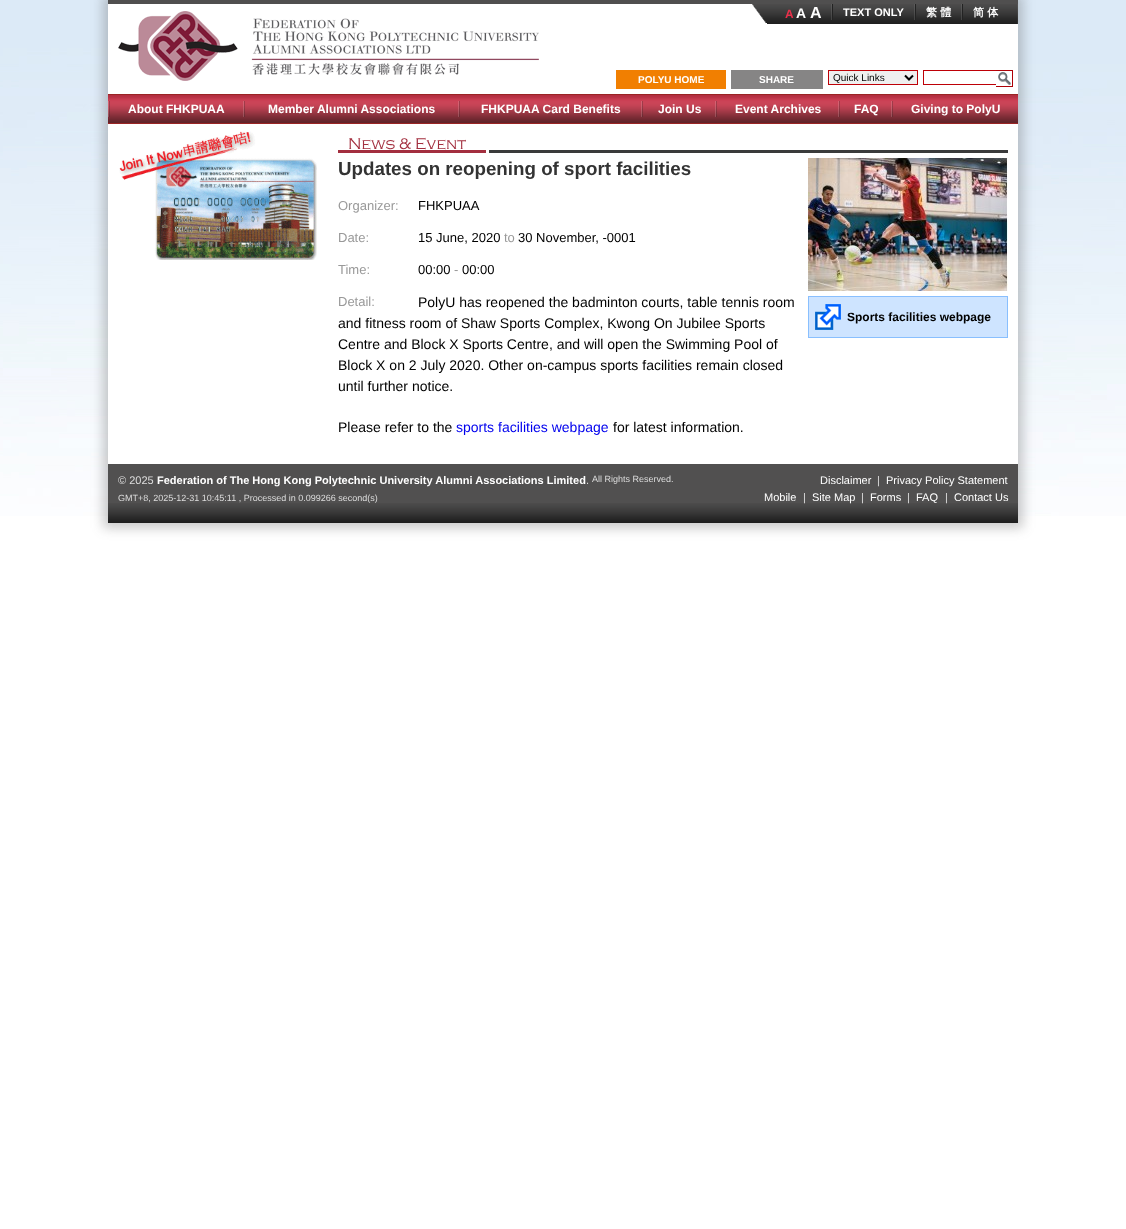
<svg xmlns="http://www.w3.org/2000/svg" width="1126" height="1229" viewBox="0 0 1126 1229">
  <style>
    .t1 { font: bold 10px Liberation Sans; fill: #fff; }
    .t2 { font: 10px Liberation Sans; fill: #000; }
    .t3 { font: bold 12px Liberation Sans; fill: #e8304a; }
    .t4 { font: bold 14px Liberation Sans; fill: #fff; }
    .t5 { font: bold 16px Liberation Sans; fill: #fff; }
    .t6 { font: bold 11px Liberation Sans; fill: #fff; }
    .t7 { font: bold 11px WenQuanYi Zen Hei; fill: #fff; }
    .t8 { font: bold 12px Liberation Sans; fill: #fff; }
    .t9 { font: 300 16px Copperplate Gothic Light; fill: #a32f3f; }
    .t10 { font: bold 18.75px Liberation Sans; fill: #333; }
    .t11 { font: 13px Liberation Sans; fill: #999; }
    .t12 { font: 13px Liberation Sans; fill: #000; }
    .t13 { font: 14px Liberation Sans; fill: #000; }
    .t14 { font: 14px Liberation Sans; fill: #00e; }
    .t15 { font: bold 12px Liberation Sans; fill: #000; }
    .t16 { font: 11px Liberation Sans; fill: #ddd; }
    .t17 { font: 9px Liberation Sans; fill: #ddd; }
    .t18 { font: 11px Liberation Sans; fill: #fff; }
  </style>
  <rect width="100%" height="100%" fill="#fff"/>
  <image x="0" y="0" width="1126" height="516" href="images/1.png"/>
  <rect x="103" y="-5" width="920" height="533" fill="#4d4d4d4d" filter="blur(6px)"/>
  <rect x="108" y="4" width="910" height="460" fill="#fff"/>
  <image x="118" y="11" width="421" height="70" href="images/2.png"/>
  <rect x="616" y="70" width="110" height="19" fill="#f17f01"/>
  <text x="638" y="83" class="t1">POLYU HOME</text>
  <rect x="731" y="70" width="92" height="19" fill="#868585"/>
  <text x="759" y="83" class="t1">SHARE</text>
  <rect x="828.5" y="70.5" width="89" height="14" fill="#efefef" stroke="#be0007"/>
  <path d="M905 75.5L909 79.5L913 75.5" fill="none" stroke="#000" stroke-width="2"/>
  <text x="833" y="81" class="t2">Quick Links</text>
  <rect x="923" y="70" width="73" height="1" fill="#be0007"/>
  <rect x="923" y="84" width="73" height="1" fill="#be0007"/>
  <rect x="923" y="70" width="1" height="15" fill="#be0007"/>
  <image x="996" y="70" width="17" height="17" href="images/3.png"/>
  <rect x="108" y="0" width="910" height="4" fill="#504f4f"/>
  <image x="752" y="4" width="18" height="20" href="images/4.png"/>
  <image x="770" y="4" width="243" height="20" href="images/5.png"/>
  <text x="785" y="18" class="t3">A</text>
  <text x="796" y="18" class="t4">A</text>
  <text x="810" y="18" class="t5">A</text>
  <image x="831" y="4" width="2" height="16" href="images/6.png"/>
  <text x="843" y="16" class="t6">TEXT ONLY</text>
  <image x="914" y="4" width="2" height="16" href="images/6.png"/>
  <text x="926" y="16" class="t7">繁 體</text>
  <image x="961" y="4" width="2" height="16" href="images/6.png"/>
  <text x="973" y="16" class="t7">简 体</text>
  <image x="1013" y="4" width="5" height="20" href="images/7.png"/>
  <image x="108" y="94" width="2" height="30" href="images/8.png"/>
  <image x="110" y="94" width="133" height="30" href="images/9.png"/>
  <text x="128" y="113" class="t8">About FHKPUAA</text>
  <image x="243" y="94" width="2" height="30" href="images/8.png"/>
  <image x="245" y="94" width="213" height="30" href="images/10.png"/>
  <text x="268" y="113" class="t8">Member Alumni Associations</text>
  <image x="458" y="94" width="2" height="30" href="images/8.png"/>
  <image x="460" y="94" width="181" height="30" href="images/11.png"/>
  <text x="481" y="113" class="t8">FHKPUAA Card Benefits</text>
  <image x="641" y="94" width="2" height="30" href="images/8.png"/>
  <image x="643" y="94" width="72" height="30" href="images/12.png"/>
  <text x="658" y="113" class="t8">Join Us</text>
  <image x="715" y="94" width="2" height="30" href="images/8.png"/>
  <image x="717" y="94" width="121" height="30" href="images/13.png"/>
  <text x="735" y="113" class="t8">Event Archives</text>
  <image x="838" y="94" width="2" height="30" href="images/8.png"/>
  <image x="840" y="94" width="51" height="30" href="images/14.png"/>
  <text x="854" y="113" class="t8">FAQ</text>
  <image x="891" y="94" width="2" height="30" href="images/8.png"/>
  <image x="893" y="94" width="125" height="30" href="images/15.png"/>
  <text x="911" y="113" class="t8">Giving to PolyU</text>
  <image x="119" y="131" width="198" height="129" href="images/16.png"/>
  <rect x="489" y="150" width="519" height="3" fill="#3a3b3b"/>
  <rect x="338" y="150" width="151" height="3" fill="#a32f3f"/>
  <rect x="486" y="150" width="3" height="3" fill="#fff"/>
  <text x="348" y="149" class="t9">News &amp; Event</text>
  <text x="338" y="175" class="t10">Updates on reopening of sport facilities</text>
  <text x="338" y="210" class="t11">Organizer:</text>
  <text x="418" y="210" class="t12">FHKPUAA</text>
  <text x="338" y="242" class="t11">Date:</text>
  <text x="418" y="242" class="t12">15 June, 2020</text>
  <text x="504" y="242" class="t11">to</text>
  <text x="518" y="242" class="t12">30 November, -0001</text>
  <text x="338" y="274" class="t11">Time:</text>
  <text x="418" y="274" class="t12">00:00</text>
  <text x="454" y="274" class="t11">-</text>
  <text x="462" y="274" class="t12">00:00</text>
  <text x="418" y="307" class="t13">PolyU has reopened the badminton courts, table tennis room</text>
  <text x="338" y="328" class="t13">and fitness room of Shaw Sports Complex, Kwong On Jubilee Sports</text>
  <text x="338" y="349" class="t13">Centre and Block X Sports Centre, and will open the Swimming Pool of</text>
  <text x="338" y="370" class="t13">Block X on 2 July 2020. Other on-campus sports facilities remain closed</text>
  <text x="338" y="391" class="t13">until further notice.</text>
  <text x="338" y="306" class="t11">Detail:</text>
  <text x="338" y="432" class="t13">Please refer to the</text>
  <text x="456" y="432" class="t14">sports facilities webpage</text>
  <text x="613" y="432" class="t13">for latest information.</text>
  <image x="808" y="158" width="200" height="133" href="images/17.png"/>
  <rect x="809" y="297" width="198" height="40" fill="#cee4ff"/>
  <image x="815" y="304" width="26" height="26" href="images/18.png"/>
  <rect x="808.5" y="296.5" width="199" height="41" fill="none" stroke="#89bffe"/>
  <text x="847" y="321" class="t15">Sports facilities webpage</text>
  <rect x="108" y="464" width="910" height="39" fill="#515050"/>
  <image x="108" y="503" width="910" height="20" href="images/19.png"/>
  <text x="118" y="484" class="t16">© 2025</text>
  <text x="157" y="484" class="t6">Federation of The Hong Kong Polytechnic University Alumni Associations Limited</text>
  <text x="586" y="484" class="t16">.</text>
  <text x="592" y="482" class="t17">All Rights Reserved.</text>
  <text x="820" y="484" class="t18">Disclaimer</text>
  <text x="877" y="484" class="t16">|</text>
  <text x="886" y="484" class="t18">Privacy Policy Statement</text>
  <text x="118" y="501" class="t17">GMT+8, 2025-12-31 10:45:11 , Processed in 0.099266 second(s)</text>
  <text x="764" y="501" class="t18">Mobile</text>
  <text x="803" y="501" class="t16">|</text>
  <text x="812" y="501" class="t18">Site Map</text>
  <text x="861" y="501" class="t16">|</text>
  <text x="870" y="501" class="t18">Forms</text>
  <text x="907" y="501" class="t16">|</text>
  <text x="916" y="501" class="t18">FAQ</text>
  <text x="945" y="501" class="t16">|</text>
  <text x="954" y="501" class="t18">Contact Us</text>
</svg>
